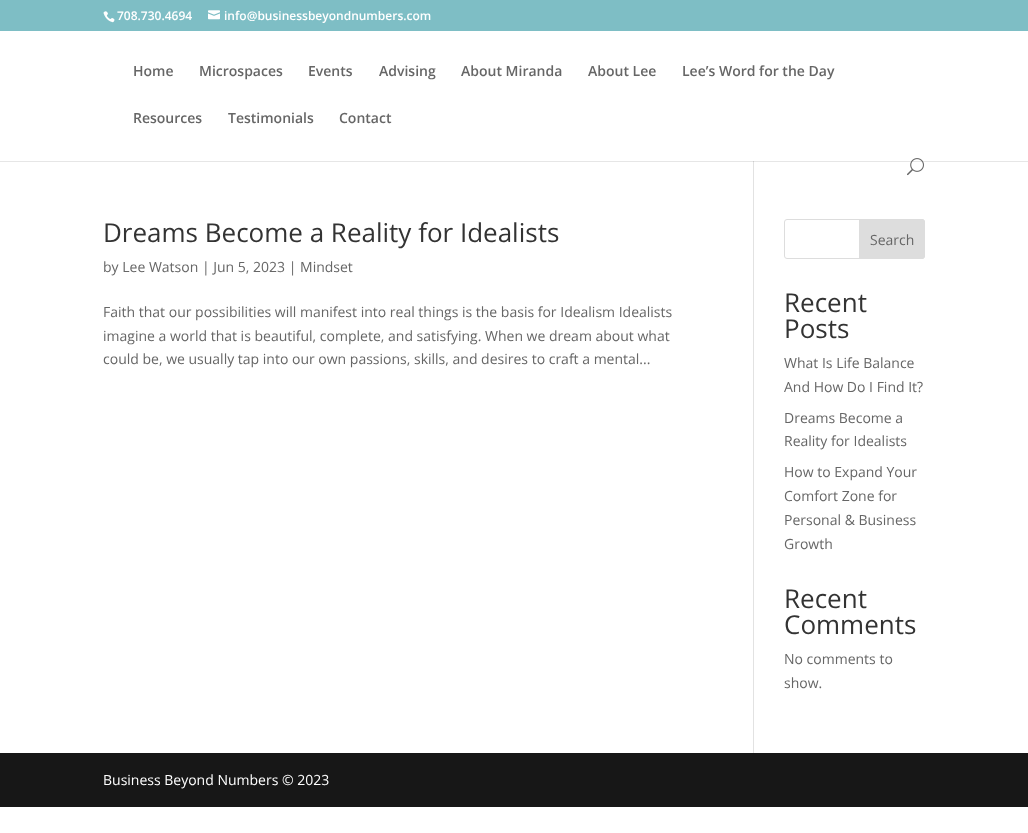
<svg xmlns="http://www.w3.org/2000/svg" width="1028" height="833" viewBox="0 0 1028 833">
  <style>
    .t1 { font: 600 12px Open Sans; fill: #fff; }
    .t2 { font: 600 14px Open Sans; fill: #666; }
    .t3 { font: 26px Open Sans; fill: #333; }
    .t4 { font: 14px Open Sans; fill: #666; }
    .t5 { font: 14px Open Sans; fill: #fff; }
  </style>
  <rect width="100%" height="100%" fill="#fff"/>
  <rect x="0" y="161" width="1028" height="1" fill="#e6e6e6"/>
  <rect x="0" y="0" width="1028" height="31" fill="#7ebec5"/>
  <image x="103" y="11" width="12" height="12" href="images/1.png"/>
  <text x="117" y="20" class="t1">708.730.4694</text>
  <image x="208" y="10" width="12" height="10" href="images/2.png"/>
  <text x="224" y="20" class="t1">info@businessbeyondnumbers.com</text>
  <text x="133" y="76" class="t2">Home</text>
  <text x="199" y="76" class="t2">Microspaces</text>
  <text x="308" y="76" class="t2">Events</text>
  <text x="379" y="76" class="t2">Advising</text>
  <text x="461" y="76" class="t2">About Miranda</text>
  <text x="588" y="76" class="t2">About Lee</text>
  <text x="682" y="76" class="t2">Lee’s Word for the Day</text>
  <text x="133" y="123" class="t2">Resources</text>
  <text x="228" y="123" class="t2">Testimonials</text>
  <text x="339" y="123" class="t2">Contact</text>
  <image x="907" y="158" width="17" height="18" href="images/3.png"/>
  <rect x="753" y="161" width="1" height="592" fill="#e2e2e2"/>
  <rect x="753" y="161" width="1" height="1" fill="#cbcbcb"/>
  <text x="103" y="242" class="t3">Dreams Become a Reality for Idealists</text>
  <text x="103" y="272" class="t4">by Lee Watson | Jun 5, 2023 | Mindset</text>
  <text x="103" y="317" class="t4">Faith that our possibilities will manifest into real things is the basis for Idealism Idealists</text>
  <text x="103" y="341" class="t4">imagine a world that is beautiful, complete, and satisfying. When we dream about what</text>
  <text x="103" y="364" class="t4">could be, we usually tap into our own passions, skills, and desires to craft a mental...</text>
  <rect x="784.5" y="219.5" width="140" height="39" rx="2.5" fill="none" stroke="#ddd"/>
  <path d="M859.5 219.5H922C923.5 219.5 924.5 220.5 924.5 222V256C924.5 257.5 923.5 258.5 922 258.5H859.5Z" fill="#ddd" stroke="#ddd"/>
  <text x="870" y="245" class="t4">Search</text>
  <text x="784" y="312" class="t3">Recent</text>
  <text x="784" y="338" class="t3">Posts</text>
  <text x="784" y="368" class="t4">What Is Life Balance</text>
  <text x="784" y="392" class="t4">And How Do I Find It?</text>
  <text x="784" y="423" class="t4">Dreams Become a</text>
  <text x="784" y="446" class="t4">Reality for Idealists</text>
  <text x="784" y="477" class="t4">How to Expand Your</text>
  <text x="784" y="501" class="t4">Comfort Zone for</text>
  <text x="784" y="525" class="t4">Personal &amp; Business</text>
  <text x="784" y="549" class="t4">Growth</text>
  <text x="784" y="608" class="t3">Recent</text>
  <text x="784" y="634" class="t3">Comments</text>
  <text x="784" y="664" class="t4">No comments to</text>
  <text x="784" y="688" class="t4">show.</text>
  <rect x="0" y="753" width="1028" height="54" fill="#171717"/>
  <text x="103" y="785" class="t5">Business Beyond Numbers © 2023</text>
</svg>
